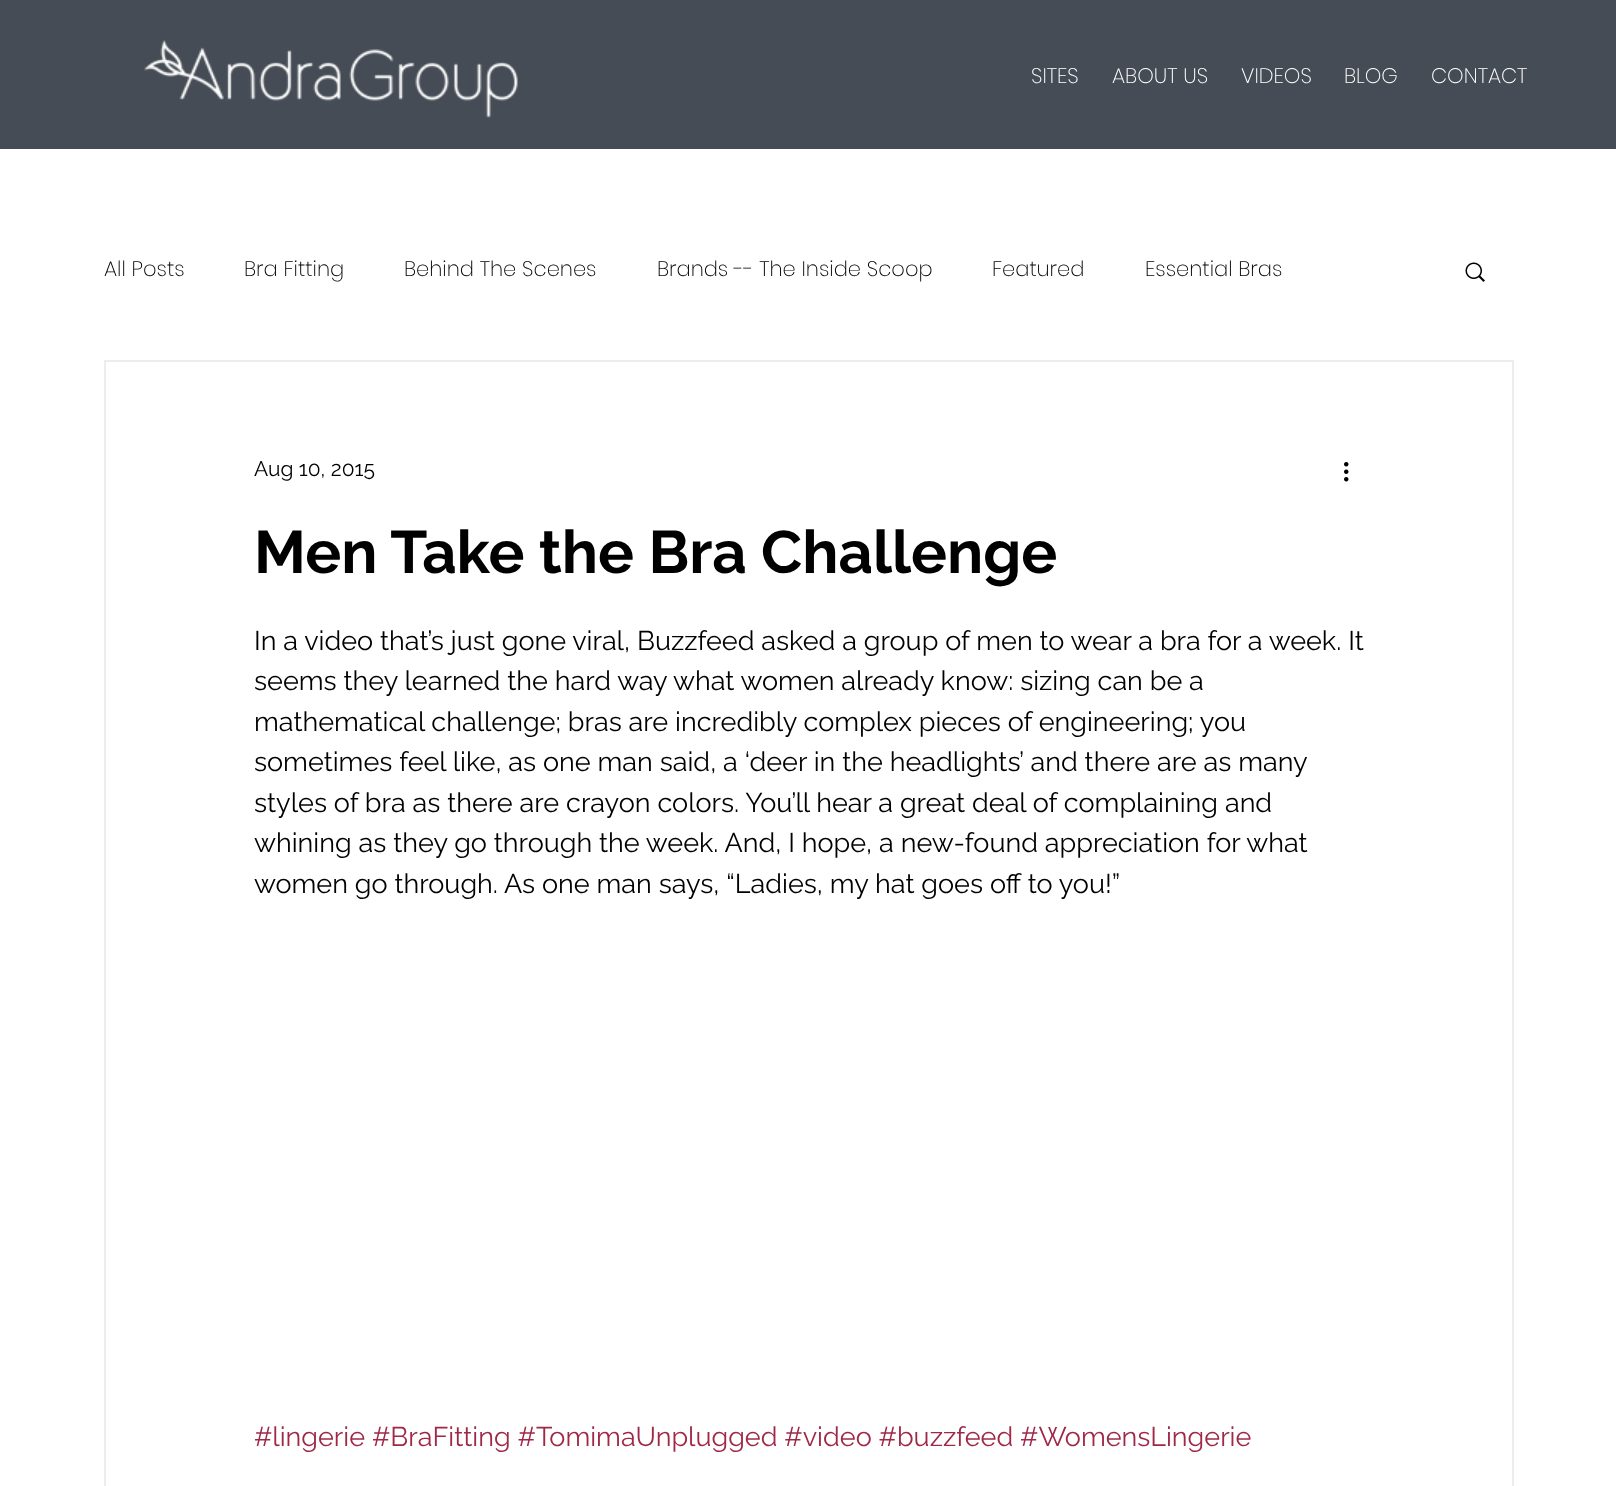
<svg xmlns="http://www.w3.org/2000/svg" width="1616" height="1486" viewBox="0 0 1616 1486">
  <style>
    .t1 { font: 200 21px Poppins; fill: #fff; }
    .t2 { font: 200 21px Poppins; fill: #000; }
    .t3 { font: 21px Raleway; fill: #000; }
    .t4 { font: bold 60px Raleway; fill: #000; }
    .t5 { font: 27px Raleway; fill: #000; }
    .t6 { font: 27px Raleway; fill: #9f2747; }
  </style>
  <rect width="100%" height="100%" fill="#fff"/>
  <rect x="0" y="0" width="1616" height="149" fill="#454c55"/>
  <image x="144" y="40" width="374" height="78" href="images/1.png"/>
  <text x="1031" y="83" class="t1">SITES</text>
  <text x="1112" y="83" class="t1">ABOUT US</text>
  <text x="1241" y="83" class="t1">VIDEOS</text>
  <text x="1344" y="83" class="t1">BLOG</text>
  <text x="1431" y="83" class="t1">CONTACT</text>
  <text x="104" y="276" class="t2">All Posts</text>
  <text x="244" y="276" class="t2">Bra Fitting</text>
  <text x="404" y="276" class="t2">Behind The Scenes</text>
  <text x="657" y="276" class="t2">Brands -- The Inside Scoop</text>
  <text x="992" y="276" class="t2">Featured</text>
  <text x="1145" y="276" class="t2">Essential Bras</text>
  <image x="1465" y="262" width="20" height="20" href="images/2.png"/>
  <rect x="105" y="361" width="1408" height="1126" fill="none" stroke="#eeecec" stroke-width="2"/>
  <text x="254" y="476" class="t3">Aug 10, 2015</text>
  <image x="1344" y="462" width="5" height="20" href="images/3.png"/>
  <text x="254" y="573" class="t4">Men Take the Bra Challenge</text>
  <text x="254" y="650" class="t5">In a video that’s just gone viral, Buzzfeed asked a group of men to wear a bra for a week. It</text>
  <text x="254" y="690" class="t5">seems they learned the hard way what women already know: sizing can be a</text>
  <text x="254" y="731" class="t5">mathematical challenge; bras are incredibly complex pieces of engineering; you</text>
  <text x="254" y="771" class="t5">sometimes feel like, as one man said, a ‘deer in the headlights’ and there are as many</text>
  <text x="254" y="812" class="t5">styles of bra as there are crayon colors. You’ll hear a great deal of complaining and</text>
  <text x="254" y="852" class="t5">whining as they go through the week. And, I hope, a new-found appreciation for what</text>
  <text x="254" y="893" class="t5">women go through. As one man says, “Ladies, my hat goes off to you!”</text>
  <text x="254" y="1446" class="t6">#lingerie #BraFitting #TomimaUnplugged #video #buzzfeed #WomensLingerie</text>
</svg>
